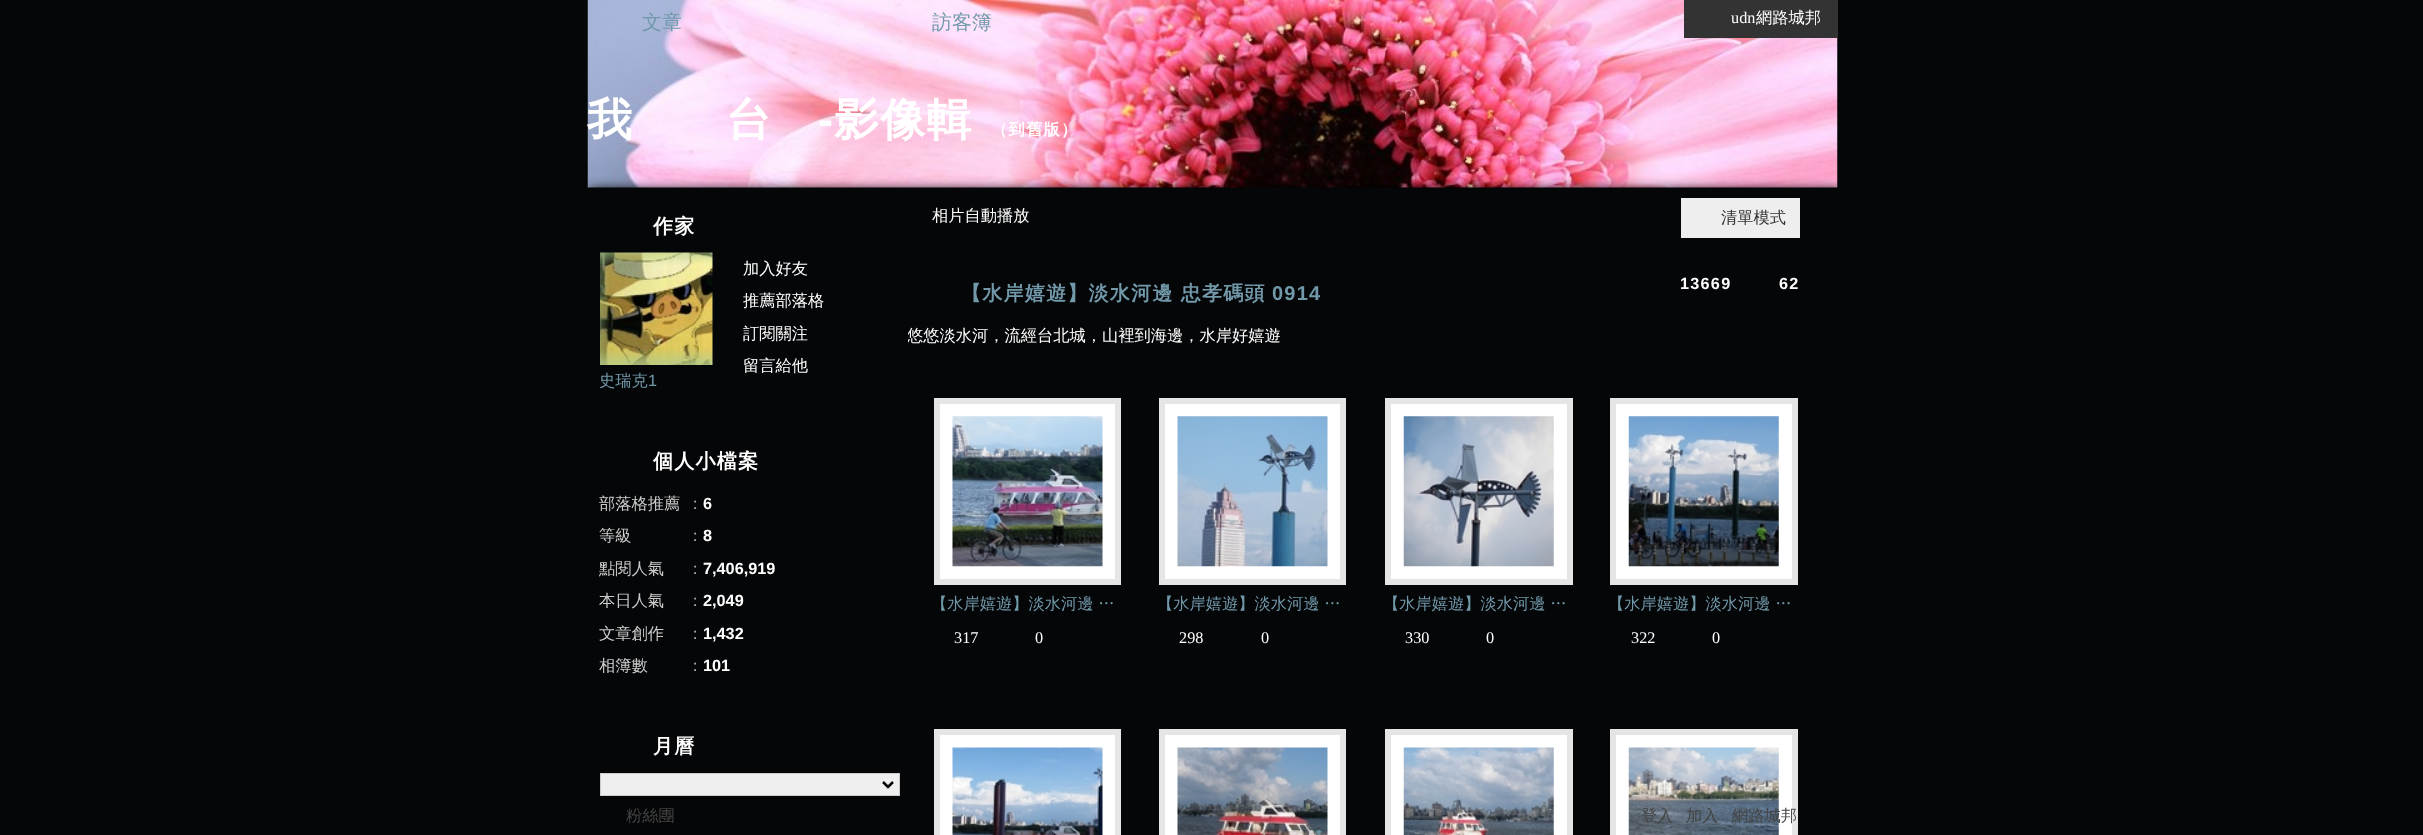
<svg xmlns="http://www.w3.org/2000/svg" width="2423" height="835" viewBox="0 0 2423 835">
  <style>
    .t1 { font: 16.25px Liberation Serif; fill: #fff; }
    .t2 { font: 500 16.25px WenQuanYi Zen Hei; fill: #fff; }
    .t3 { font: 500 20px WenQuanYi Zen Hei; fill: #7199aa; }
    .t4 { font: bold 45px WenQuanYi Zen Hei; letter-spacing: 1.25px; fill: #fff; }
    .t5 { font: bold 45px Liberation Sans; letter-spacing: 1.25px; fill: #fff; }
    .t6 { font: bold 16.25px WenQuanYi Zen Hei; letter-spacing: 1.25px; fill: #fff; }
    .t7 { font: bold 20px WenQuanYi Zen Hei; letter-spacing: 1.25px; fill: #fff; }
    .t8 { font: 500 16.25px WenQuanYi Zen Hei; fill: #7199aa; }
    .t9 { font: 16.25px Liberation Sans; fill: #7199aa; }
    .t10 { font: 500 16.25px WenQuanYi Zen Hei; fill: #ccc; }
    .t11 { font: 500 16.25px WenQuanYi Zen Hei; fill: #aaa; }
    .t12 { font: bold 16.25px Liberation Sans; fill: #fff; }
    .t13 { font: 500 16.25px WenQuanYi Zen Hei; fill: #333; }
    .t14 { font: bold 20px WenQuanYi Zen Hei; letter-spacing: 1.25px; fill: #7199aa; }
    .t15 { font: bold 20px Liberation Sans; letter-spacing: 1.25px; fill: #7199aa; }
    .t16 { font: bold 16.25px Liberation Sans; letter-spacing: 1.25px; fill: #fff; }
    .t17 { font: 500 16.25px WenQuanYi Zen Hei; fill: #444; }
  </style>
  <defs>
    <clipPath id="clip1"><rect x="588" y="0" width="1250" height="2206"/></clipPath>
    <clipPath id="clip2"><path d="M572 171H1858V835H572ZM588 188H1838V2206H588Z" clip-rule="evenodd"/></clipPath>
    <clipPath id="clip3"><rect x="908" y="188" width="917" height="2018"/></clipPath>
  </defs>
  <rect width="100%" height="100%" fill="#050608"/>
  <image x="587" y="0" width="1251" height="188" href="images/1.png"/>
  <rect x="1684" y="0" width="154" height="38" fill="#333"/>
  <text x="1731" y="23" class="t1">udn</text>
  <text x="1756" y="23" class="t2">網路城邦</text>
  <text x="642" y="29" class="t3">文章</text>
  <text x="932" y="29" class="t3">訪客簿</text>
  <text x="587" y="135" class="t4">我</text>
  <text x="726" y="135" class="t4">台</text>
  <text x="818" y="135" class="t5">-</text>
  <text x="834" y="135" class="t4">影像輯</text>
  <text x="991" y="135" class="t6">（到舊版）</text>
  <g clip-path="url(#clip1)">
    <g clip-path="url(#clip2)">
      <rect x="590" y="189" width="1250" height="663" fill="#000" filter="blur(5.5px)"/>
    </g>
  </g>
  <text x="653" y="233" class="t7">作家</text>
  <text x="743" y="274" class="t2">加入好友</text>
  <text x="743" y="306" class="t2">推薦部落格</text>
  <text x="743" y="339" class="t2">訂閱關注</text>
  <text x="743" y="371" class="t2">留言給他</text>
  <image x="600" y="252" width="113" height="113" href="images/2.png"/>
  <text x="599" y="386" class="t8">史瑞克</text>
  <text x="648" y="386" class="t9">1</text>
  <text x="653" y="468" class="t7">個人小檔案</text>
  <text x="599" y="509" class="t10">部落格推薦</text>
  <text x="687" y="509" class="t11">：</text>
  <text x="703" y="509" class="t12">6</text>
  <text x="599" y="541" class="t10">等級</text>
  <text x="687" y="541" class="t11">：</text>
  <text x="703" y="541" class="t12">8</text>
  <text x="599" y="574" class="t10">點閱人氣</text>
  <text x="687" y="574" class="t11">：</text>
  <text x="703" y="574" class="t12">7,406,919</text>
  <text x="599" y="606" class="t10">本日人氣</text>
  <text x="687" y="606" class="t11">：</text>
  <text x="703" y="606" class="t12">2,049</text>
  <text x="599" y="639" class="t10">文章創作</text>
  <text x="687" y="639" class="t11">：</text>
  <text x="703" y="639" class="t12">1,432</text>
  <text x="599" y="671" class="t10">相簿數</text>
  <text x="687" y="671" class="t11">：</text>
  <text x="703" y="671" class="t12">101</text>
  <text x="653" y="753" class="t7">月曆</text>
  <rect x="600.5" y="773.5" width="299" height="22" fill="#efefef" stroke="#ccc"/>
  <path d="M883 782L888 787L893 782" fill="none" stroke="#000" stroke-width="2.5"/>
  <text x="932" y="221" class="t2">相片自動播放</text>
  <rect x="1681" y="198" width="119" height="40" fill="#eee"/>
  <text x="1721" y="223" class="t13">清單模式</text>
  <text x="961" y="300" class="t14">【水岸嬉遊】淡水河邊 忠孝碼頭</text>
  <text x="1272" y="300" class="t15">0914</text>
  <text x="1680" y="289" class="t16">13669</text>
  <text x="1779" y="289" class="t16">62</text>
  <g clip-path="url(#clip3)">
    <text x="907" y="341" class="t2">悠悠淡水河，流經台北城，山裡到海邊，水岸好嬉遊</text>
  </g>
  <rect x="937" y="401" width="181" height="181" fill="#fff" stroke="#e5e5e5" stroke-width="6"/>
  <image x="952" y="416" width="151" height="151" href="images/3.png"/>
  <text x="931" y="609" class="t8">【水岸嬉遊】淡水河邊 …</text>
  <text x="954" y="643" class="t1">317</text>
  <text x="1035" y="643" class="t1">0</text>
  <rect x="1162" y="401" width="181" height="181" fill="#fff" stroke="#e5e5e5" stroke-width="6"/>
  <image x="1177" y="416" width="151" height="151" href="images/4.png"/>
  <text x="1157" y="609" class="t8">【水岸嬉遊】淡水河邊 …</text>
  <text x="1179" y="643" class="t1">298</text>
  <text x="1261" y="643" class="t1">0</text>
  <rect x="1388" y="401" width="182" height="181" fill="#fff" stroke="#e5e5e5" stroke-width="6"/>
  <image x="1403" y="416" width="151" height="151" href="images/5.png"/>
  <text x="1383" y="609" class="t8">【水岸嬉遊】淡水河邊 …</text>
  <text x="1405" y="643" class="t1">330</text>
  <text x="1486" y="643" class="t1">0</text>
  <rect x="1613" y="401" width="182" height="181" fill="#fff" stroke="#e5e5e5" stroke-width="6"/>
  <image x="1628" y="416" width="151" height="151" href="images/6.png"/>
  <text x="1608" y="609" class="t8">【水岸嬉遊】淡水河邊 …</text>
  <text x="1631" y="643" class="t1">322</text>
  <text x="1712" y="643" class="t1">0</text>
  <rect x="937" y="732" width="181" height="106" fill="#fff" stroke="#e5e5e5" stroke-width="6"/>
  <image x="952" y="747" width="151" height="88" href="images/7.png"/>
  <rect x="1162" y="732" width="181" height="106" fill="#fff" stroke="#e5e5e5" stroke-width="6"/>
  <image x="1177" y="747" width="151" height="88" href="images/8.png"/>
  <rect x="1388" y="732" width="182" height="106" fill="#fff" stroke="#e5e5e5" stroke-width="6"/>
  <image x="1403" y="747" width="151" height="88" href="images/9.png"/>
  <rect x="1613" y="732" width="182" height="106" fill="#fff" stroke="#e5e5e5" stroke-width="6"/>
  <image x="1628" y="747" width="151" height="88" href="images/10.png"/>
  <text x="626" y="821" class="t17">粉絲團</text>
  <text x="1641" y="821" class="t17">登入</text>
  <text x="1686" y="821" class="t17">加入</text>
  <text x="1732" y="821" class="t17">網路城邦</text>
</svg>
